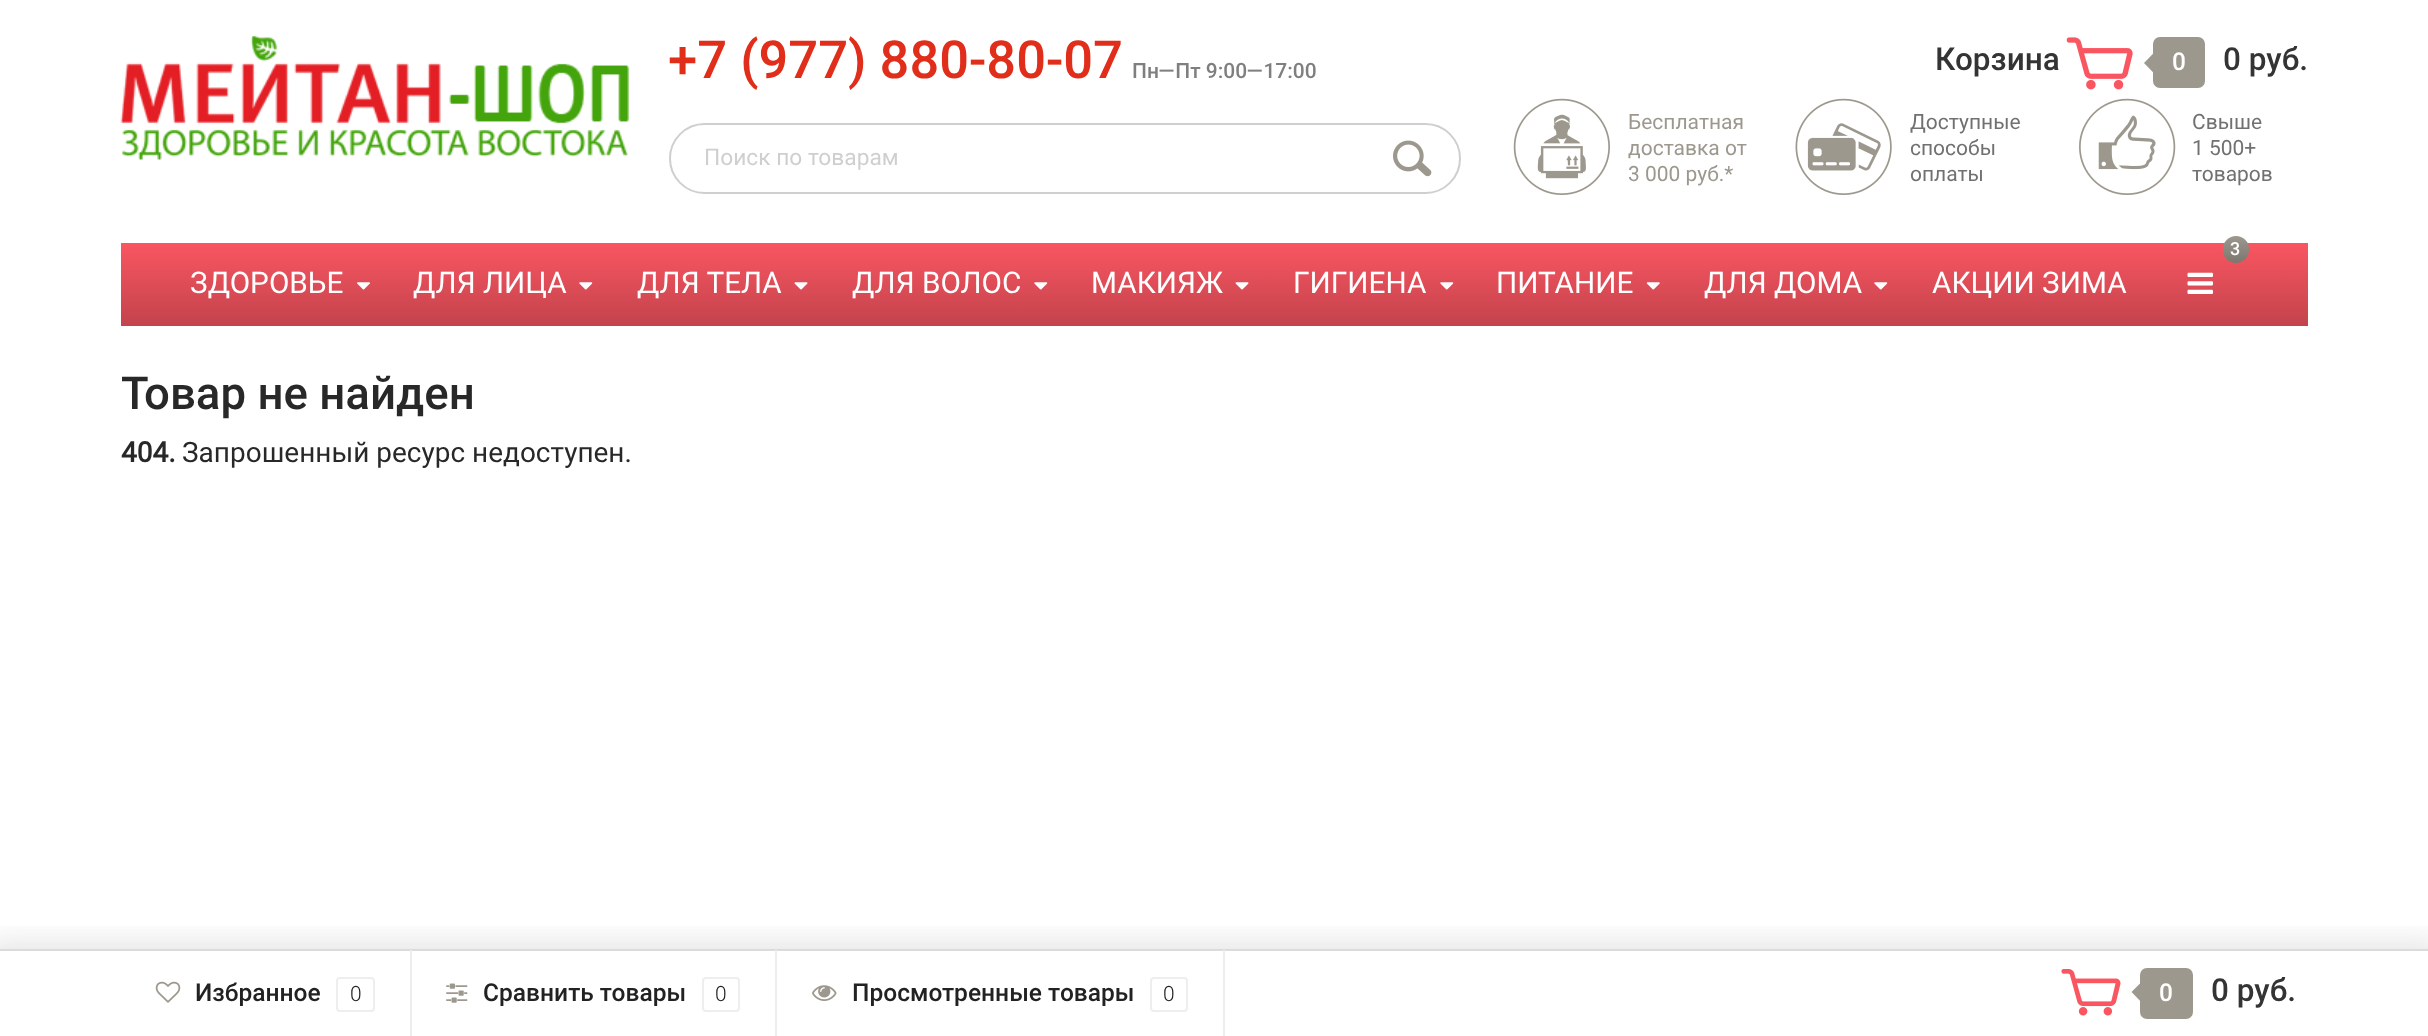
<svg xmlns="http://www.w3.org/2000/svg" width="2428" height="1036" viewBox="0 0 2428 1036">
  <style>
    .t1 { font: 500 52.5px Roboto; fill: #e02e1a; }
    .t2 { font: 500 21px Roboto; fill: #7f7f7f; }
    .t3 { font: 500 31.5px Roboto; fill: #343434; }
    .t4 { font: 500 24.5px Roboto; fill: #fff; }
    .t5 { font: 22.75px Roboto; fill: #cfcfcf; }
    .t6 { font: 21px Roboto; fill: #9d988e; }
    .t7 { font: 21px Roboto; fill: #717171; }
    .t8 { font: 500 18px Roboto; fill: #fff; }
    .t9 { font: 29.75px Roboto; fill: #fff; }
    .t10 { font: 500 45.5px Roboto; fill: #282828; }
    .t11 { font: bold 28px Roboto; fill: #282828; }
    .t12 { font: 28px Roboto; fill: #282828; }
    .t13 { font: 500 24.5px Roboto; fill: #222; }
    .t14 { font: 300 21px Roboto; fill: #222; }
  </style>
  <defs>
    <linearGradient id="g1" gradientUnits="userSpaceOnUse" x1="1215" y1="243" x2="1215" y2="326"><stop offset="0" stop-color="#f95661"/><stop offset="1" stop-color="#c3434c"/></linearGradient>
    <linearGradient id="g2" gradientUnits="userSpaceOnUse" x1="2236" y1="236" x2="2236" y2="263"><stop offset="0" stop-color="#000" stop-opacity="0"/><stop offset="1" stop-color="#000" stop-opacity="0.22"/></linearGradient>
    <clipPath id="clip1"><rect x="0" y="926" width="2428" height="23"/></clipPath>
  </defs>
  <rect width="100%" height="100%" fill="#fff"/>
  <image x="120" y="36" width="510" height="124" href="images/1.png"/>
  <text x="668" y="78" class="t1">+7 (977) 880-80-07</text>
  <text x="1132" y="78" class="t2">Пн—Пт 9:00—17:00</text>
  <text x="1935" y="70" class="t3">Корзина</text>
  <image x="2066" y="37" width="67" height="53" href="images/2.png"/>
  <rect x="2156.5" y="40.5" width="45" height="44" rx="3.5" fill="#9d988e" stroke="#9d988e" stroke-width="7"/>
  <path d="M2159.5 47V79L2144 63Z" fill="#9d988e"/>
  <text x="2172" y="70" class="t4">0</text>
  <text x="2223" y="70" class="t3">0 руб.</text>
  <rect x="670" y="124" width="790" height="69" rx="34.5" fill="none" stroke="#d0cfcf" stroke-width="2"/>
  <text x="704" y="165" class="t5">Поиск по товарам</text>
  <image x="1393" y="140" width="39" height="37" href="images/3.png"/>
  <image x="1513" y="98" width="97" height="97" href="images/4.png"/>
  <text x="1628" y="129" class="t6">Бесплатная</text>
  <text x="1628" y="155" class="t6">доставка от</text>
  <text x="1628" y="181" class="t6">3 000 руб.*</text>
  <image x="1795" y="98" width="97" height="97" href="images/5.png"/>
  <text x="1910" y="129" class="t7">Доступные</text>
  <text x="1910" y="155" class="t7">способы</text>
  <text x="1910" y="181" class="t7">оплаты</text>
  <image x="2079" y="98" width="97" height="97" href="images/6.png"/>
  <text x="2192" y="129" class="t7">Свыше</text>
  <text x="2192" y="155" class="t7">1 500+</text>
  <text x="2192" y="181" class="t7">товаров</text>
  <rect x="121" y="243" width="2187" height="83" fill="url(#g1)"/>
  <rect x="2223" y="236" width="26" height="27" rx="13" fill="#9d988e"/>
  <rect x="2223" y="236" width="26" height="27" rx="13" fill="url(#g2)"/>
  <text x="2230" y="255" class="t8">3</text>
  <image x="2187" y="272" width="26" height="22" href="images/7.png"/>
  <text x="190" y="293" class="t9">ЗДОРОВЬЕ</text>
  <image x="357" y="282" width="13" height="8" href="images/8.png"/>
  <text x="413" y="293" class="t9">ДЛЯ ЛИЦА</text>
  <image x="579" y="282" width="14" height="8" href="images/9.png"/>
  <text x="637" y="293" class="t9">ДЛЯ ТЕЛА</text>
  <image x="794" y="282" width="14" height="8" href="images/10.png"/>
  <text x="852" y="293" class="t9">ДЛЯ ВОЛОС</text>
  <image x="1034" y="282" width="14" height="8" href="images/9.png"/>
  <text x="1091" y="293" class="t9">МАКИЯЖ</text>
  <image x="1235" y="282" width="14" height="8" href="images/10.png"/>
  <text x="1293" y="293" class="t9">ГИГИЕНА</text>
  <image x="1440" y="282" width="14" height="8" href="images/9.png"/>
  <text x="1496" y="293" class="t9">ПИТАНИЕ</text>
  <image x="1646" y="282" width="14" height="8" href="images/11.png"/>
  <text x="1704" y="293" class="t9">ДЛЯ ДОМА</text>
  <image x="1874" y="282" width="14" height="8" href="images/9.png"/>
  <text x="1932" y="293" class="t9">АКЦИИ ЗИМА</text>
  <text x="121" y="409" class="t10">Товар не найден</text>
  <text x="121" y="462" class="t11">404.</text>
  <text x="182" y="462" class="t12">Запрошенный ресурс недоступен.</text>
  <g clip-path="url(#clip1)">
    <rect x="-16" y="945" width="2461" height="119" fill="#32323226" filter="blur(17.5px)"/>
  </g>
  <rect x="0" y="949" width="2428" height="2" fill="#dbdbdb"/>
  <rect x="410" y="950" width="2" height="86" fill="#ededed"/>
  <image x="155" y="981" width="26" height="22" href="images/12.png"/>
  <text x="195" y="1001" class="t13">Избранное</text>
  <rect x="337" y="978" width="37" height="33" rx="3" fill="none" stroke="#eee" stroke-width="2"/>
  <text x="350" y="1001" class="t14">0</text>
  <rect x="775" y="950" width="2" height="86" fill="#ededed"/>
  <image x="446" y="983" width="22" height="20" href="images/13.png"/>
  <text x="483" y="1001" class="t13">Сравнить товары</text>
  <rect x="703" y="978" width="36" height="33" rx="3" fill="none" stroke="#eee" stroke-width="2"/>
  <text x="715" y="1001" class="t14">0</text>
  <rect x="1223" y="950" width="2" height="86" fill="#ededed"/>
  <image x="812" y="985" width="25" height="16" href="images/14.png"/>
  <text x="852" y="1001" class="t13">Просмотренные товары</text>
  <rect x="1151" y="978" width="36" height="33" rx="3" fill="none" stroke="#eee" stroke-width="2"/>
  <text x="1163" y="1001" class="t14">0</text>
  <image x="2061" y="969" width="60" height="47" href="images/15.png"/>
  <rect x="2143.5" y="971.5" width="46" height="44" rx="3.5" fill="#9d988e" stroke="#9d988e" stroke-width="7"/>
  <path d="M2147 976.5V1008L2131.5 992Z" fill="#9d988e"/>
  <text x="2159" y="1001" class="t4">0</text>
  <text x="2211" y="1001" class="t3">0 руб.</text>
</svg>
